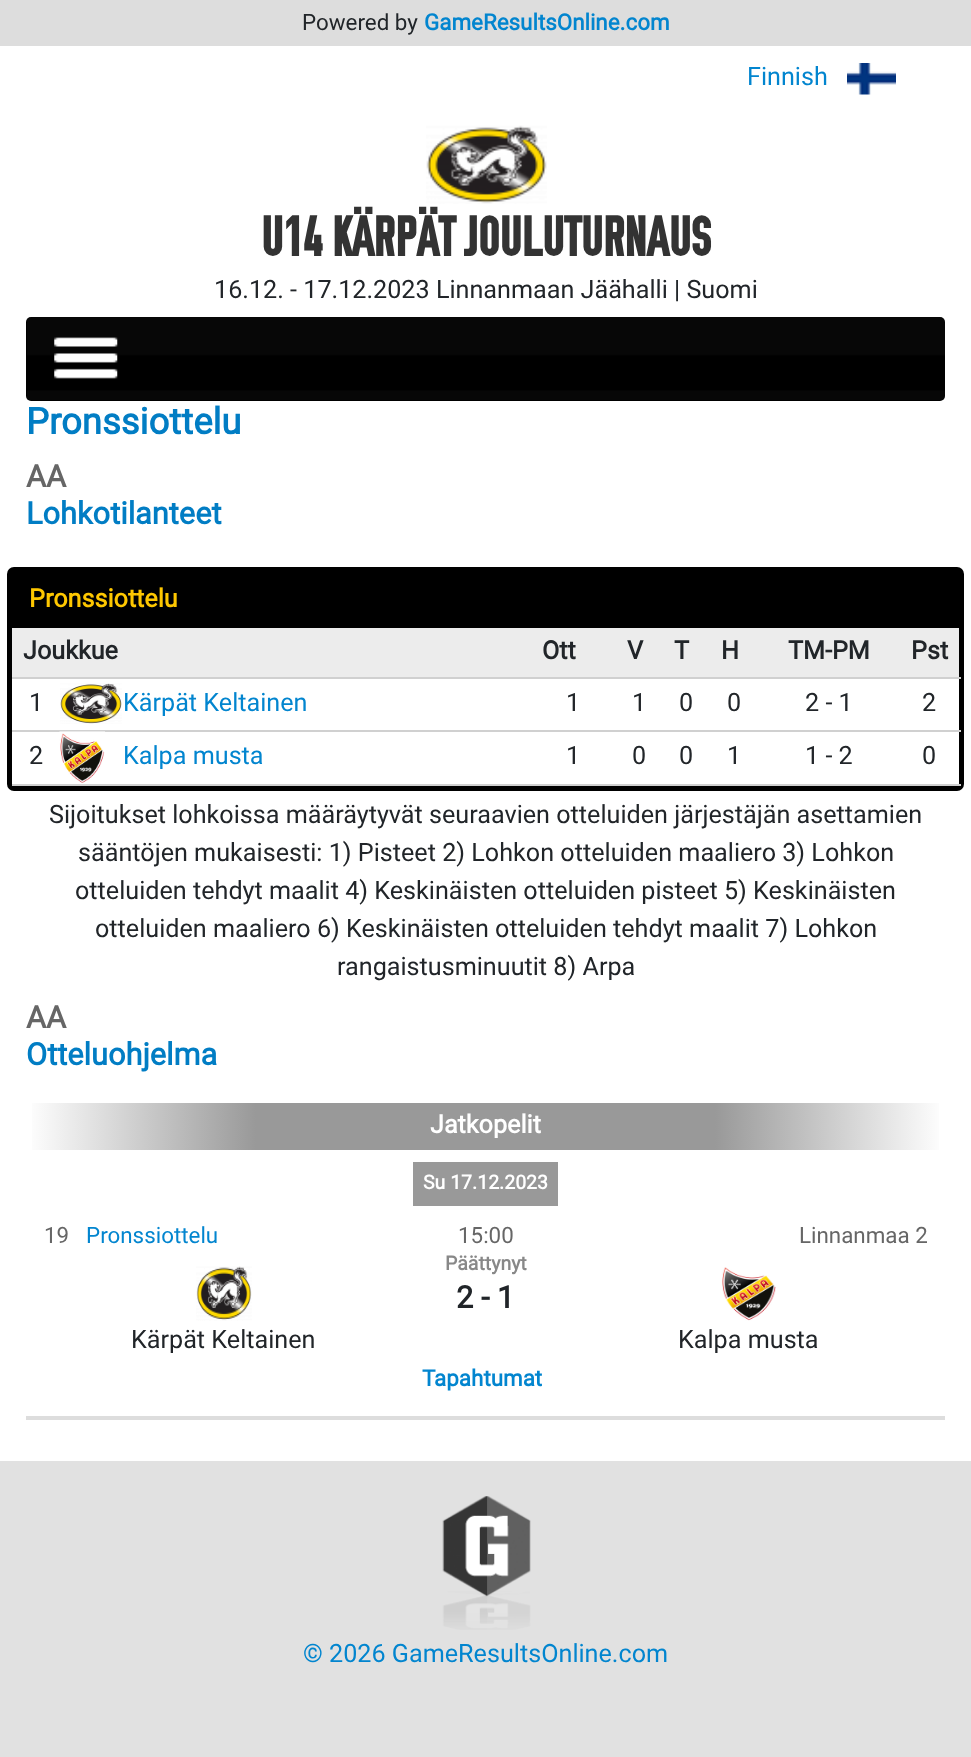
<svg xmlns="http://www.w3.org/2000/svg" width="971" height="1757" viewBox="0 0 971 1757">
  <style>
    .t1 { font: 22.4px Roboto; fill: #212529; }
    .t2 { font: bold 22.4px Roboto; fill: #0285cf; }
    .t3 { font: 25.2px Roboto; fill: #0285cf; }
    .t4 { font: bold 56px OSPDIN; fill: #333; }
    .t5 { font: 25.2px Roboto; fill: #212529; }
    .t6 { font: bold 36.5px Roboto; fill: #017dc4; }
    .t7 { font: bold 30.75px Roboto; fill: #666; }
    .t8 { font: bold 30.75px Roboto; fill: #017dc4; }
    .t9 { font: bold 25.2px Roboto; fill: #fec700; }
    .t10 { font: bold 25.2px Roboto; fill: #212529; }
    .t11 { font: bold 25.2px Roboto; fill: #fff; }
    .t12 { font: bold 19.5px Roboto; fill: #fff; }
    .t13 { font: 22.4px Roboto; fill: #666; }
    .t14 { font: 22.4px Roboto; fill: #0285cf; }
    .t15 { font: bold 19.5px Roboto; fill: #888; }
    .t16 { font: bold 30.75px Roboto; fill: #212529; }
  </style>
  <defs>
    <linearGradient id="g1" gradientUnits="userSpaceOnUse" x1="26" y1="1126" x2="945" y2="1126"><stop offset="0" stop-color="#fff"/><stop offset="0.25" stop-color="#999"/><stop offset="0.75" stop-color="#999"/><stop offset="1" stop-color="#fff"/></linearGradient>
  </defs>
  <rect width="100%" height="100%" fill="#e1e1e1"/>
  <rect x="0" y="46" width="971" height="1415" fill="#fff"/>
  <rect x="0" y="0" width="971" height="46" fill="#ddd"/>
  <text x="302" y="30" class="t1">Powered by</text>
  <text x="424" y="30" class="t2">GameResultsOnline.com</text>
  <text x="747" y="85" class="t3">Finnish</text>
  <image x="847" y="63" width="49" height="32" href="images/1.png"/>
  <image x="426" y="125" width="121" height="79" href="images/2.png"/>
  <text x="261" y="256" class="t4">U14 KÄRPÄT JOULUTURNAUS</text>
  <text x="214" y="298" class="t5">16.12. - 17.12.2023 Linnanmaan Jäähalli | Suomi</text>
  <rect x="26" y="317" width="919" height="84" rx="5" fill="#000"/>
  <image x="27" y="317" width="918" height="83" href="images/3.png"/>
  <image x="54" y="337" width="64" height="42" href="images/4.png"/>
  <text x="26" y="434" class="t6">Pronssiottelu</text>
  <text x="26" y="487" class="t7">AA</text>
  <text x="26" y="524" class="t8">Lohkotilanteet</text>
  <rect x="7" y="567" width="957" height="224" rx="7" fill="#000"/>
  <text x="29" y="607" class="t9">Pronssiottelu</text>
  <rect x="12" y="679" width="947" height="105" fill="#fff"/>
  <rect x="12" y="628" width="947" height="49" fill="#ececec"/>
  <text x="23" y="659" class="t10">Joukkue</text>
  <text x="542" y="659" class="t10">Ott</text>
  <text x="627" y="659" class="t10">V</text>
  <text x="674" y="659" class="t10">T</text>
  <text x="721" y="659" class="t10">H</text>
  <text x="788" y="659" class="t10">TM-PM</text>
  <rect x="12" y="677" width="949" height="2" fill="#d0d0d0"/>
  <text x="911" y="659" class="t10">Pst</text>
  <text x="29" y="711" class="t5">1</text>
  <image x="60" y="683" width="62" height="41" href="images/5.png"/>
  <text x="123" y="711" class="t3">Kärpät Keltainen</text>
  <text x="566" y="711" class="t5">1</text>
  <text x="632" y="711" class="t5">1</text>
  <text x="679" y="711" class="t5">0</text>
  <text x="727" y="711" class="t5">0</text>
  <text x="805" y="711" class="t5">2 - 1</text>
  <rect x="12" y="730" width="949" height="2" fill="#d0d0d0"/>
  <text x="922" y="711" class="t5">2</text>
  <text x="29" y="764" class="t5">2</text>
  <image x="59" y="731" width="46" height="52" href="images/6.png"/>
  <text x="123" y="764" class="t3">Kalpa musta</text>
  <text x="566" y="764" class="t5">1</text>
  <text x="632" y="764" class="t5">0</text>
  <text x="679" y="764" class="t5">0</text>
  <text x="727" y="764" class="t5">1</text>
  <text x="805" y="764" class="t5">1 - 2</text>
  <rect x="12" y="784" width="949" height="2" fill="#d0d0d0"/>
  <text x="922" y="764" class="t5">0</text>
  <text x="49" y="823" class="t5">Sijoitukset lohkoissa määräytyvät seuraavien otteluiden järjestäjän asettamien</text>
  <text x="78" y="861" class="t5">sääntöjen mukaisesti: 1) Pisteet 2) Lohkon otteluiden maaliero 3) Lohkon</text>
  <text x="75" y="899" class="t5">otteluiden tehdyt maalit 4) Keskinäisten otteluiden pisteet 5) Keskinäisten</text>
  <text x="95" y="937" class="t5">otteluiden maaliero 6) Keskinäisten otteluiden tehdyt maalit 7) Lohkon</text>
  <text x="337" y="975" class="t5">rangaistusminuutit 8) Arpa</text>
  <text x="26" y="1028" class="t7">AA</text>
  <text x="26" y="1065" class="t8">Otteluohjelma</text>
  <rect x="32" y="1103" width="907" height="47" fill="url(#g1)"/>
  <text x="430" y="1133" class="t11">Jatkopelit</text>
  <rect x="413" y="1162" width="145" height="44" fill="#999"/>
  <text x="423" y="1189" class="t12">Su 17.12.2023</text>
  <rect x="26" y="1416" width="919" height="4" fill="#ddd"/>
  <text x="44" y="1243" class="t13">19</text>
  <text x="86" y="1243" class="t14">Pronssiottelu</text>
  <text x="458" y="1243" class="t13">15:00</text>
  <text x="799" y="1243" class="t13">Linnanmaa 2</text>
  <text x="445" y="1270" class="t15">Päättynyt</text>
  <text x="456" y="1308" class="t16">2 - 1</text>
  <image x="196" y="1266" width="56" height="55" href="images/7.png"/>
  <text x="131" y="1348" class="t5">Kärpät Keltainen</text>
  <image x="722" y="1267" width="54" height="54" href="images/8.png"/>
  <text x="678" y="1348" class="t5">Kalpa musta</text>
  <text x="422" y="1386" class="t2">Tapahtumat</text>
  <image x="442" y="1496" width="89" height="134" href="images/9.png"/>
  <text x="303" y="1662" class="t3">© 2026 GameResultsOnline.com</text>
</svg>
